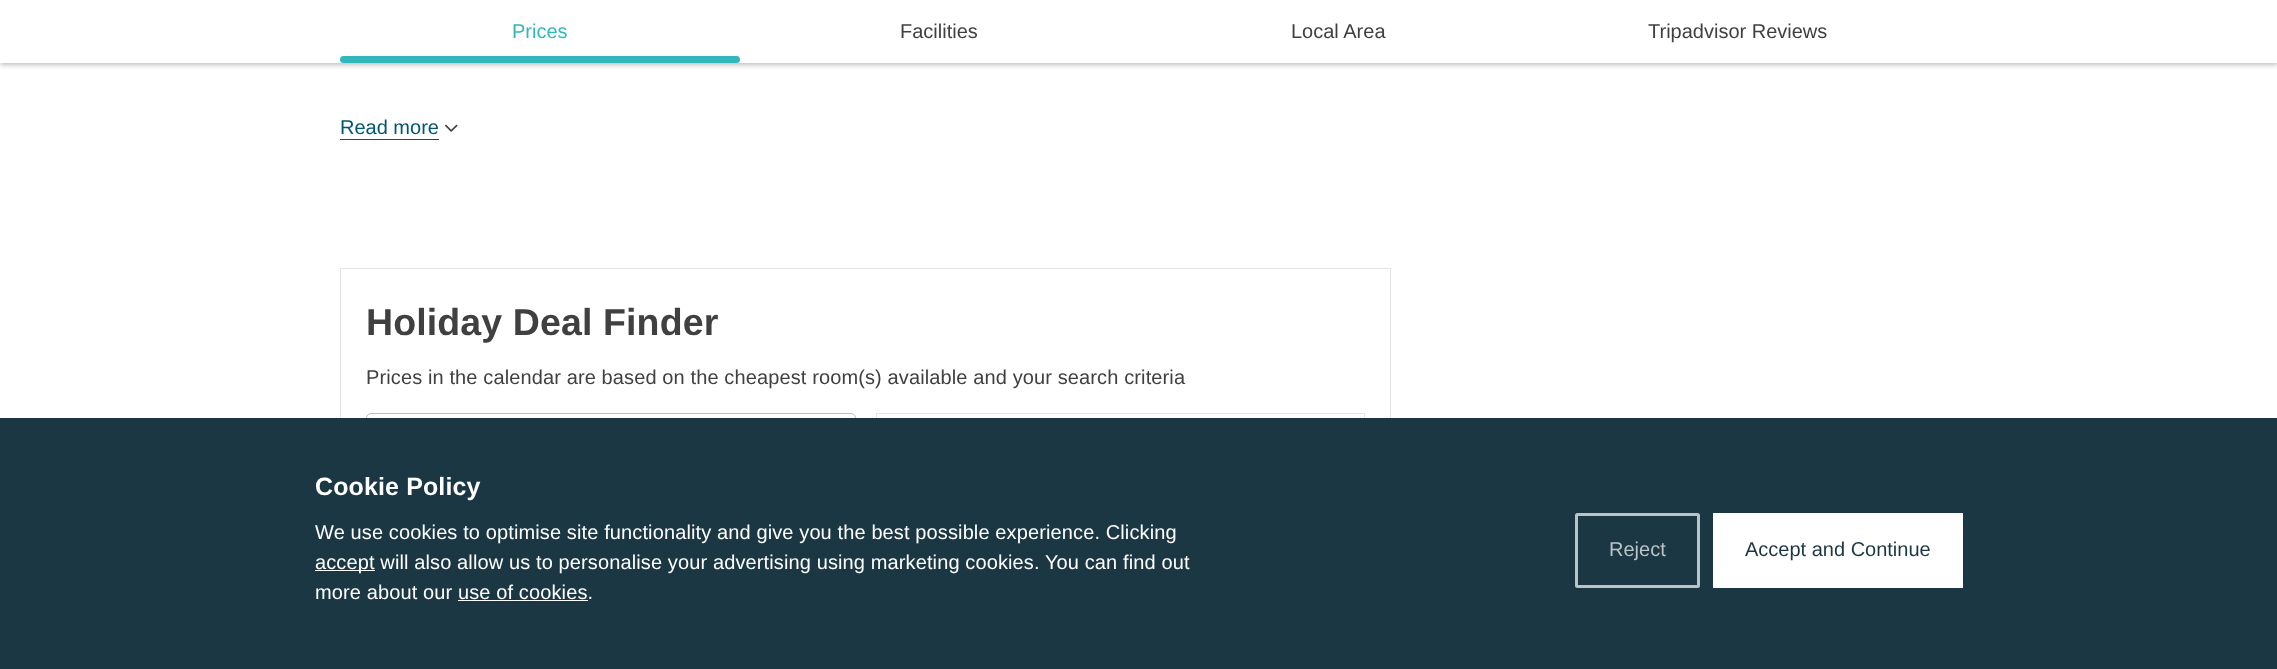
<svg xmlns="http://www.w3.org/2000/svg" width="2277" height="669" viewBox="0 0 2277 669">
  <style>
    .t1 { font: 20px Liberation Sans; fill: #31b7bc; }
    .t2 { font: 20px Liberation Sans; fill: #404040; }
    .t3 { font: 20px Liberation Sans; fill: #005672; }
    .t4 { font: bold 37.5px Liberation Sans; letter-spacing: 0.12px; fill: #404040; }
    .t5 { font: 20px Liberation Sans; letter-spacing: 0.12px; fill: #404040; }
    .t6 { font: bold 25px Liberation Sans; letter-spacing: 0.12px; fill: #fff; }
    .t7 { font: 20px Liberation Sans; letter-spacing: 0.12px; fill: #fff; }
    .t8 { font: 20px Liberation Sans; fill: #bbc3c7; }
    .t9 { font: 20px Liberation Sans; fill: #1b3744; }
  </style>
  <rect width="100%" height="100%" fill="#fff"/>
  <rect x="0" y="3" width="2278" height="62" fill="#bfbfbf" filter="blur(2.5px)"/>
  <rect x="0" y="0" width="2277" height="63" fill="#fff"/>
  <text x="512" y="38" class="t1">Prices</text>
  <text x="900" y="38" class="t2">Facilities</text>
  <text x="1291" y="38" class="t2">Local Area</text>
  <text x="1648" y="38" class="t2">Tripadvisor Reviews</text>
  <rect x="340" y="56" width="400" height="7" rx="3.5" fill="#31b7bc"/>
  <text x="340" y="134" class="t3">Read more</text>
  <rect x="340" y="139" width="99" height="1" fill="#005672"/>
  <image x="445" y="124" width="13" height="8" href="images/1.png"/>
  <rect x="340.5" y="268.5" width="1050" height="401" fill="none" stroke="#e5e5e5"/>
  <text x="366" y="335" class="t4">Holiday Deal Finder</text>
  <text x="366" y="384" class="t5">Prices in the calendar are based on the cheapest room(s) available and your search criteria</text>
  <rect x="366.5" y="413.5" width="489" height="49" rx="4.5" fill="none" stroke="#bfbfbf"/>
  <rect x="876.5" y="413.5" width="488" height="49" fill="none" stroke="#e5e5e5"/>
  <rect x="0" y="418" width="2277" height="251" fill="#1b3744"/>
  <text x="315" y="495" class="t6">Cookie Policy</text>
  <text x="315" y="539" class="t7">We use cookies to optimise site functionality and give you the best possible experience. Clicking</text>
  <rect x="315" y="570" width="60" height="1" fill="#fff"/>
  <text x="315" y="569" class="t7">accept will also allow us to personalise your advertising using marketing cookies. You can find out</text>
  <text x="315" y="599" class="t7">more about our use of cookies.</text>
  <rect x="458" y="600" width="130" height="1" fill="#fff"/>
  <rect x="1576.5" y="514.5" width="122" height="72" rx="1" fill="none" stroke="#bbc3c7" stroke-width="3"/>
  <text x="1609" y="556" class="t8">Reject</text>
  <rect x="1713" y="513" width="250" height="75" fill="#fff"/>
  <text x="1745" y="556" class="t9">Accept and Continue</text>
</svg>
